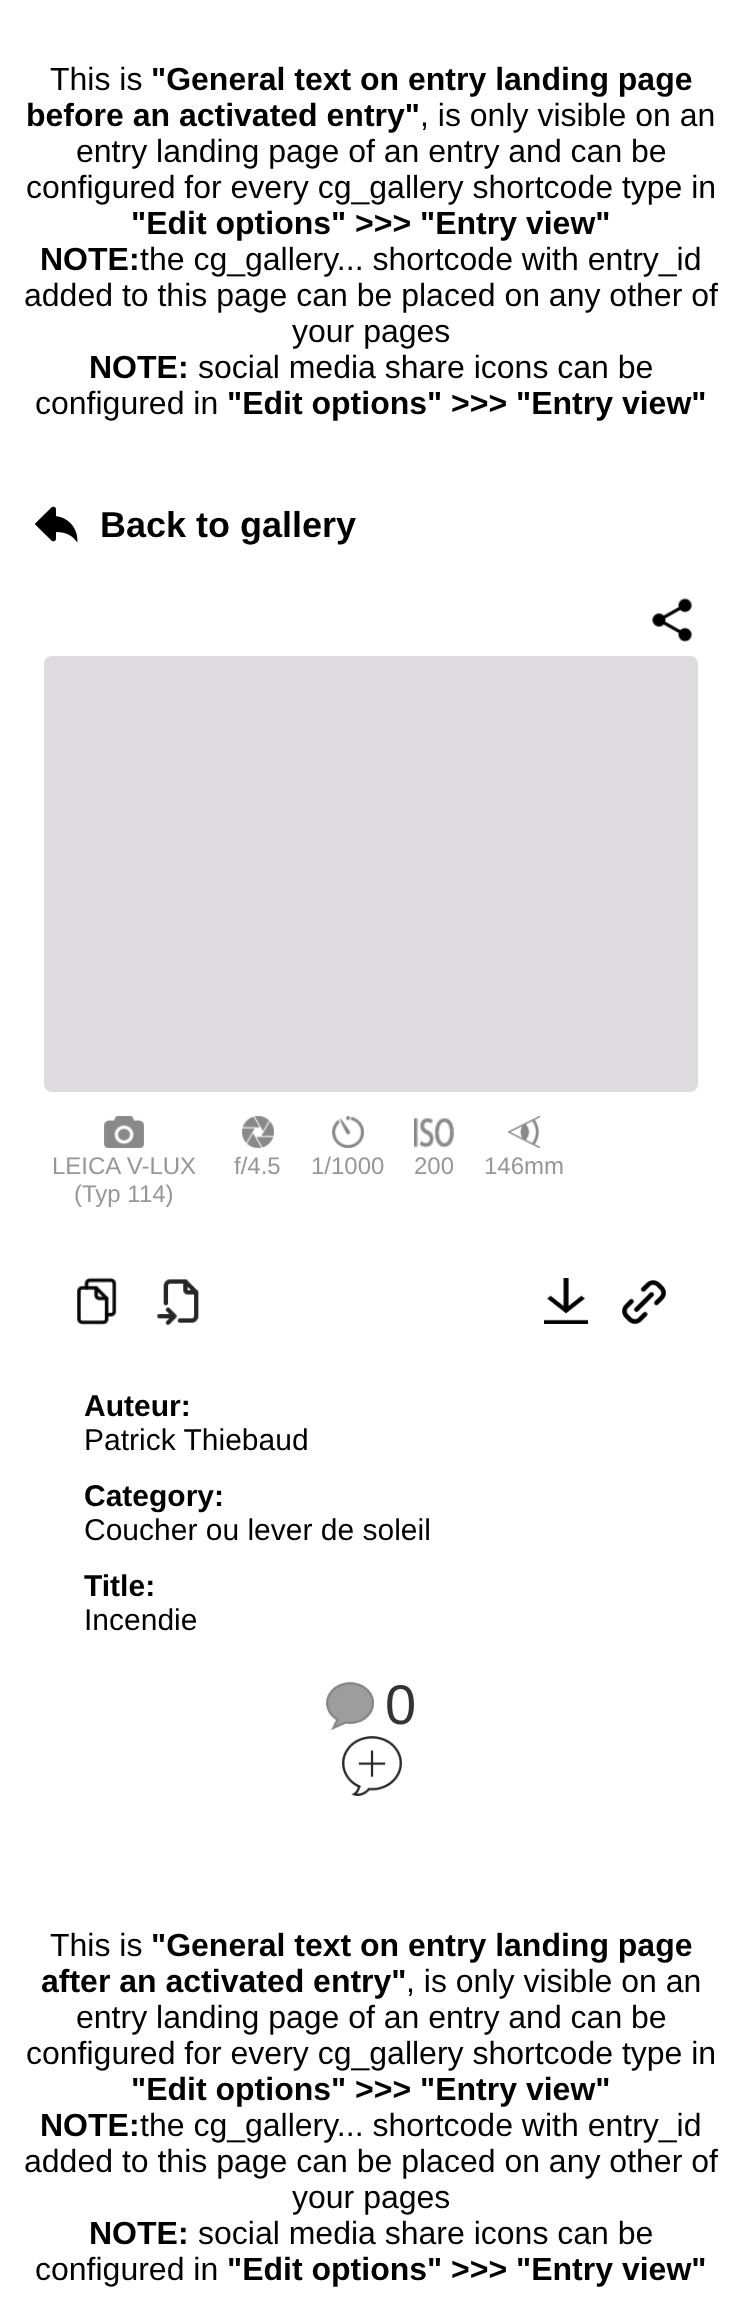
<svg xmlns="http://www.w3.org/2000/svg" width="742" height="2299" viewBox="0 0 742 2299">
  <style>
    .t1 { font: 32px Liberation Sans; fill: #000; }
    .t2 { font: bold 32px Liberation Sans; fill: #000; }
    .t3 { font: bold 36px Liberation Sans; fill: #000; }
    .t4 { font: 24px Liberation Sans; fill: #979797; }
    .t5 { font: bold 30px Liberation Sans; fill: #000; }
    .t6 { font: 30px Liberation Sans; fill: #000; }
    .t7 { font: 56px Liberation Sans; fill: #333; }
  </style>
  <rect width="100%" height="100%" fill="#fff"/>
  <text x="50" y="90" class="t1">This is</text>
  <text x="151" y="90" class="t2">"General text on entry landing page</text>
  <text x="26" y="126" class="t2">before an activated entry"</text>
  <text x="420" y="126" class="t1">, is only visible on an</text>
  <text x="76" y="162" class="t1">entry landing page of an entry and can be</text>
  <text x="26" y="198" class="t1">configured for every cg_gallery shortcode type in</text>
  <text x="131" y="234" class="t2">"Edit options" &gt;&gt;&gt; "Entry view"</text>
  <text x="40" y="270" class="t2">NOTE:</text>
  <text x="140" y="270" class="t1">the cg_gallery... shortcode with entry_id</text>
  <text x="24" y="306" class="t1">added to this page can be placed on any other of</text>
  <text x="292" y="342" class="t1">your pages</text>
  <text x="89" y="378" class="t2">NOTE:</text>
  <text x="198" y="378" class="t1">social media share icons can be</text>
  <text x="35" y="414" class="t1">configured in</text>
  <text x="227" y="414" class="t2">"Edit options" &gt;&gt;&gt; "Entry view"</text>
  <image x="34" y="506" width="44" height="37" href="images/1.png"/>
  <text x="100" y="537" class="t3">Back to gallery</text>
  <image x="652" y="598" width="40" height="44" href="images/2.png"/>
  <rect x="44" y="656" width="654" height="436" rx="8" fill="#dddbdd"/>
  <image x="104" y="1116" width="40" height="32" href="images/3.png"/>
  <text x="52" y="1174" class="t4">LEICA V-LUX</text>
  <text x="74" y="1202" class="t4">(Typ 114)</text>
  <image x="242" y="1116" width="32" height="32" href="images/4.png"/>
  <text x="234" y="1174" class="t4">f/4.5</text>
  <image x="332" y="1116" width="32" height="32" href="images/5.png"/>
  <text x="311" y="1174" class="t4">1/1000</text>
  <image x="414" y="1118" width="40" height="30" href="images/6.png"/>
  <text x="414" y="1174" class="t4">200</text>
  <image x="508" y="1116" width="32" height="32" href="images/7.png"/>
  <text x="484" y="1174" class="t4">146mm</text>
  <image x="77" y="1277" width="40" height="48" href="images/8.png"/>
  <image x="157" y="1279" width="42" height="46" href="images/9.png"/>
  <image x="544" y="1278" width="44" height="46" href="images/10.png"/>
  <image x="622" y="1280" width="44" height="44" href="images/11.png"/>
  <text x="84" y="1416" class="t5">Auteur:</text>
  <text x="84" y="1450" class="t6">Patrick Thiebaud</text>
  <text x="84" y="1506" class="t5">Category:</text>
  <text x="84" y="1540" class="t6">Coucher ou lever de soleil</text>
  <text x="84" y="1596" class="t5">Title:</text>
  <text x="84" y="1630" class="t6">Incendie</text>
  <image x="326" y="1682" width="48" height="48" href="images/12.png"/>
  <text x="385" y="1724" class="t7">0</text>
  <image x="342" y="1736" width="60" height="60" href="images/13.png"/>
  <text x="50" y="1956" class="t1">This is</text>
  <text x="151" y="1956" class="t2">"General text on entry landing page</text>
  <text x="41" y="1992" class="t2">after an activated entry"</text>
  <text x="406" y="1992" class="t1">, is only visible on an</text>
  <text x="76" y="2028" class="t1">entry landing page of an entry and can be</text>
  <text x="26" y="2064" class="t1">configured for every cg_gallery shortcode type in</text>
  <text x="131" y="2100" class="t2">"Edit options" &gt;&gt;&gt; "Entry view"</text>
  <text x="40" y="2136" class="t2">NOTE:</text>
  <text x="140" y="2136" class="t1">the cg_gallery... shortcode with entry_id</text>
  <text x="24" y="2172" class="t1">added to this page can be placed on any other of</text>
  <text x="292" y="2208" class="t1">your pages</text>
  <text x="89" y="2244" class="t2">NOTE:</text>
  <text x="198" y="2244" class="t1">social media share icons can be</text>
  <text x="35" y="2280" class="t1">configured in</text>
  <text x="227" y="2280" class="t2">"Edit options" &gt;&gt;&gt; "Entry view"</text>
</svg>
